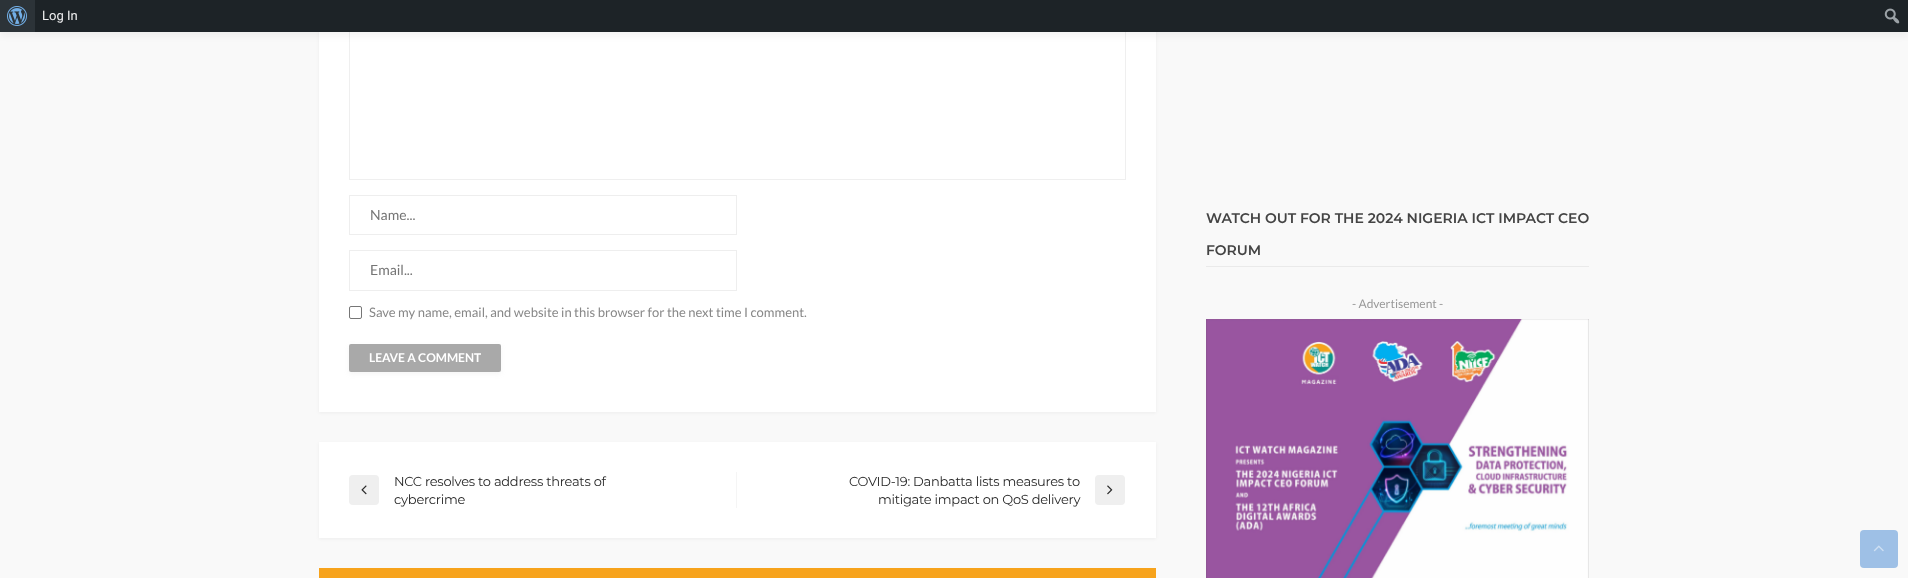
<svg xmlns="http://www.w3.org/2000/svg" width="1908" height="578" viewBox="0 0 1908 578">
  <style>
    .t1 { font: 13px Roboto; fill: #f0f0f1; }
    .t2 { font: 14px Lato; fill: #757575; }
    .t3 { font: 13px Lato; fill: #888; }
    .t4 { font: bold 12px Lato; fill: #fff; }
    .t5 { font: 13px Montserrat; letter-spacing: -0.25px; fill: #282828; }
    .t6 { font: 600 14px Montserrat; fill: #444; }
    .t7 { font: 12px Lato; fill: #999; }
  </style>
  <rect width="100%" height="100%" fill="#f9f9f9"/>
  <rect x="319" y="-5" width="837" height="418" fill="#1c1c1c0d" filter="blur(1.5px)"/>
  <rect x="319" y="32" width="837" height="380" fill="#fff"/>
  <rect x="349.5" y="-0.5" width="776" height="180" fill="none" stroke="#efefef"/>
  <rect x="0" y="-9" width="1908" height="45" fill="#1c1c1c0d" filter="blur(3px)"/>
  <rect x="35" y="0" width="1873" height="32" fill="#1d2327"/>
  <rect x="0" y="0" width="35" height="32" fill="#2c3338"/>
  <image x="7" y="6" width="20" height="20" href="images/1.png"/>
  <text x="42" y="20" class="t1">Log In</text>
  <image x="1884" y="8" width="16" height="16" href="images/2.png"/>
  <rect x="349.5" y="195.5" width="387" height="39" fill="none" stroke="#eee"/>
  <text x="370" y="220" class="t2">Name...</text>
  <rect x="349.5" y="250.5" width="387" height="40" fill="none" stroke="#eee"/>
  <text x="370" y="275" class="t2">Email...</text>
  <rect x="349.5" y="306.5" width="12" height="12" rx="1.5" fill="none" stroke="#767676"/>
  <text x="369" y="317" class="t3">Save my name, email, and website in this browser for the next time I comment.</text>
  <rect x="349" y="346" width="152" height="28" rx="2" fill="#9999991a" filter="blur(2.5px)"/>
  <rect x="349" y="344" width="152" height="28" rx="2" fill="#a9a9a9"/>
  <text x="369" y="362" class="t4">LEAVE A COMMENT</text>
  <rect x="319" y="443" width="837" height="96" fill="#1c1c1c0d" filter="blur(1.5px)"/>
  <rect x="319" y="442" width="837" height="96" fill="#fff"/>
  <rect x="349" y="475" width="30" height="30" rx="4" fill="#efefef"/>
  <image x="361" y="485" width="6" height="10" href="images/3.png"/>
  <text x="394" y="486" class="t5">NCC resolves to address threats of</text>
  <text x="394" y="504" class="t5">cybercrime</text>
  <rect x="736" y="472" width="1" height="36" fill="#f5f5f5"/>
  <text x="849" y="486" class="t5">COVID-19: Danbatta lists measures to</text>
  <text x="878" y="504" class="t5">mitigate impact on QoS delivery</text>
  <rect x="1095" y="475" width="30" height="30" rx="4" fill="#efefef"/>
  <image x="1107" y="485" width="6" height="10" href="images/4.png"/>
  <rect x="319" y="568" width="837" height="10" fill="#f7a31c"/>
  <rect x="1206" y="266" width="383" height="1" fill="#eaeaea"/>
  <text x="1206" y="223" class="t6">WATCH OUT FOR THE 2024 NIGERIA ICT IMPACT CEO</text>
  <text x="1206" y="255" class="t6">FORUM</text>
  <text x="1352" y="308" class="t7">- Advertisement -</text>
  <image x="1206" y="319" width="383" height="259" href="images/5.png"/>
  <rect x="1860" y="530" width="38" height="38" rx="4" fill="#9ec0e6"/>
  <image x="1873" y="545" width="11" height="7" href="images/6.png"/>
</svg>
